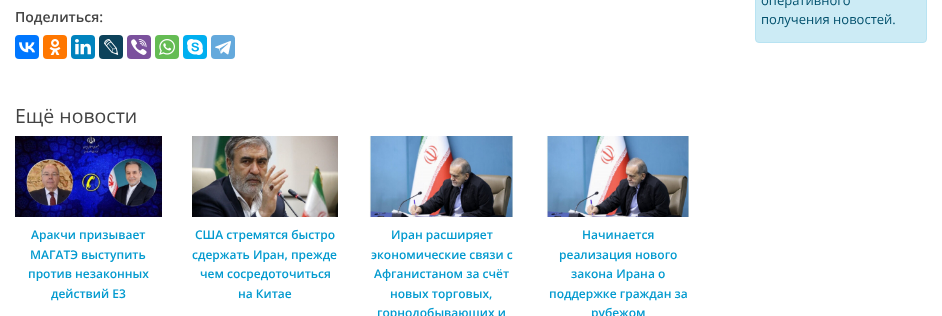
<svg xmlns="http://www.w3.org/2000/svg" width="942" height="316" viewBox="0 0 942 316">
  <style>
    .t1 { font: 600 14px Open Sans; fill: #444; }
    .t2 { font: 19.5px Open Sans; fill: #444; }
    .t3 { font: 600 12px Open Sans; fill: #029acf; }
    .t4 { font: 13px Open Sans; fill: #01506c; }
  </style>
  <rect width="100%" height="100%" fill="#fff"/>
  <text x="15" y="22" class="t1">Поделиться:</text>
  <rect x="15" y="35" width="24" height="24" rx="4" fill="#07f"/>
  <image x="19" y="42" width="16" height="11" href="images/1.png"/>
  <rect x="43" y="35" width="24" height="24" rx="4" fill="#f70"/>
  <image x="49" y="39" width="12" height="16" href="images/2.png"/>
  <rect x="71" y="35" width="24" height="24" rx="4" fill="#0083be"/>
  <image x="75" y="39" width="16" height="16" href="images/3.png"/>
  <rect x="99" y="35" width="24" height="24" rx="4" fill="#0d425a"/>
  <image x="104" y="39" width="15" height="16" href="images/4.png"/>
  <rect x="127" y="35" width="24" height="24" rx="4" fill="#7b519d"/>
  <image x="131" y="39" width="16" height="16" href="images/5.png"/>
  <rect x="155" y="35" width="24" height="24" rx="4" fill="#65bc54"/>
  <image x="159" y="39" width="16" height="16" href="images/6.png"/>
  <rect x="183" y="35" width="24" height="24" rx="4" fill="#00aff0"/>
  <image x="187" y="39" width="16" height="16" href="images/7.png"/>
  <rect x="211" y="35" width="24" height="24" rx="4" fill="#64a9dc"/>
  <image x="215" y="41" width="16" height="14" href="images/8.png"/>
  <text x="15" y="123" class="t2">Ещё новости</text>
  <image x="15" y="136" width="147" height="81" href="images/9.png"/>
  <text x="31" y="239" class="t3">Аракчи призывает</text>
  <text x="30" y="259" class="t3">МАГАТЭ выступить</text>
  <text x="28" y="278" class="t3">против незаконных</text>
  <text x="51" y="298" class="t3">действий E3</text>
  <image x="192" y="136" width="146" height="81" href="images/10.png"/>
  <text x="195" y="239" class="t3">США стремятся быстро</text>
  <text x="192" y="259" class="t3">сдержать Иран, прежде</text>
  <text x="200" y="278" class="t3">чем сосредоточиться</text>
  <text x="238" y="298" class="t3">на Китае</text>
  <image x="369" y="136" width="144" height="81" href="images/11.png"/>
  <text x="391" y="239" class="t3">Иран расширяет</text>
  <text x="371" y="259" class="t3">экономические связи с</text>
  <text x="374" y="278" class="t3">Афганистаном за счёт</text>
  <text x="390" y="298" class="t3">новых торговых,</text>
  <text x="377" y="317" class="t3">горнодобывающих и</text>
  <image x="546" y="136" width="143" height="81" href="images/12.png"/>
  <text x="582" y="239" class="t3">Начинается</text>
  <text x="559" y="259" class="t3">реализация нового</text>
  <text x="571" y="278" class="t3">закона Ирана о</text>
  <text x="549" y="298" class="t3">поддержке граждан за</text>
  <text x="591" y="317" class="t3">рубежом</text>
  <rect x="755.5" y="-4.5" width="171" height="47" rx="3.5" fill="#ccebf5" stroke="#b8e3f2"/>
  <text x="761" y="5" class="t4">оперативного</text>
  <text x="761" y="24" class="t4">получения новостей.</text>
</svg>
